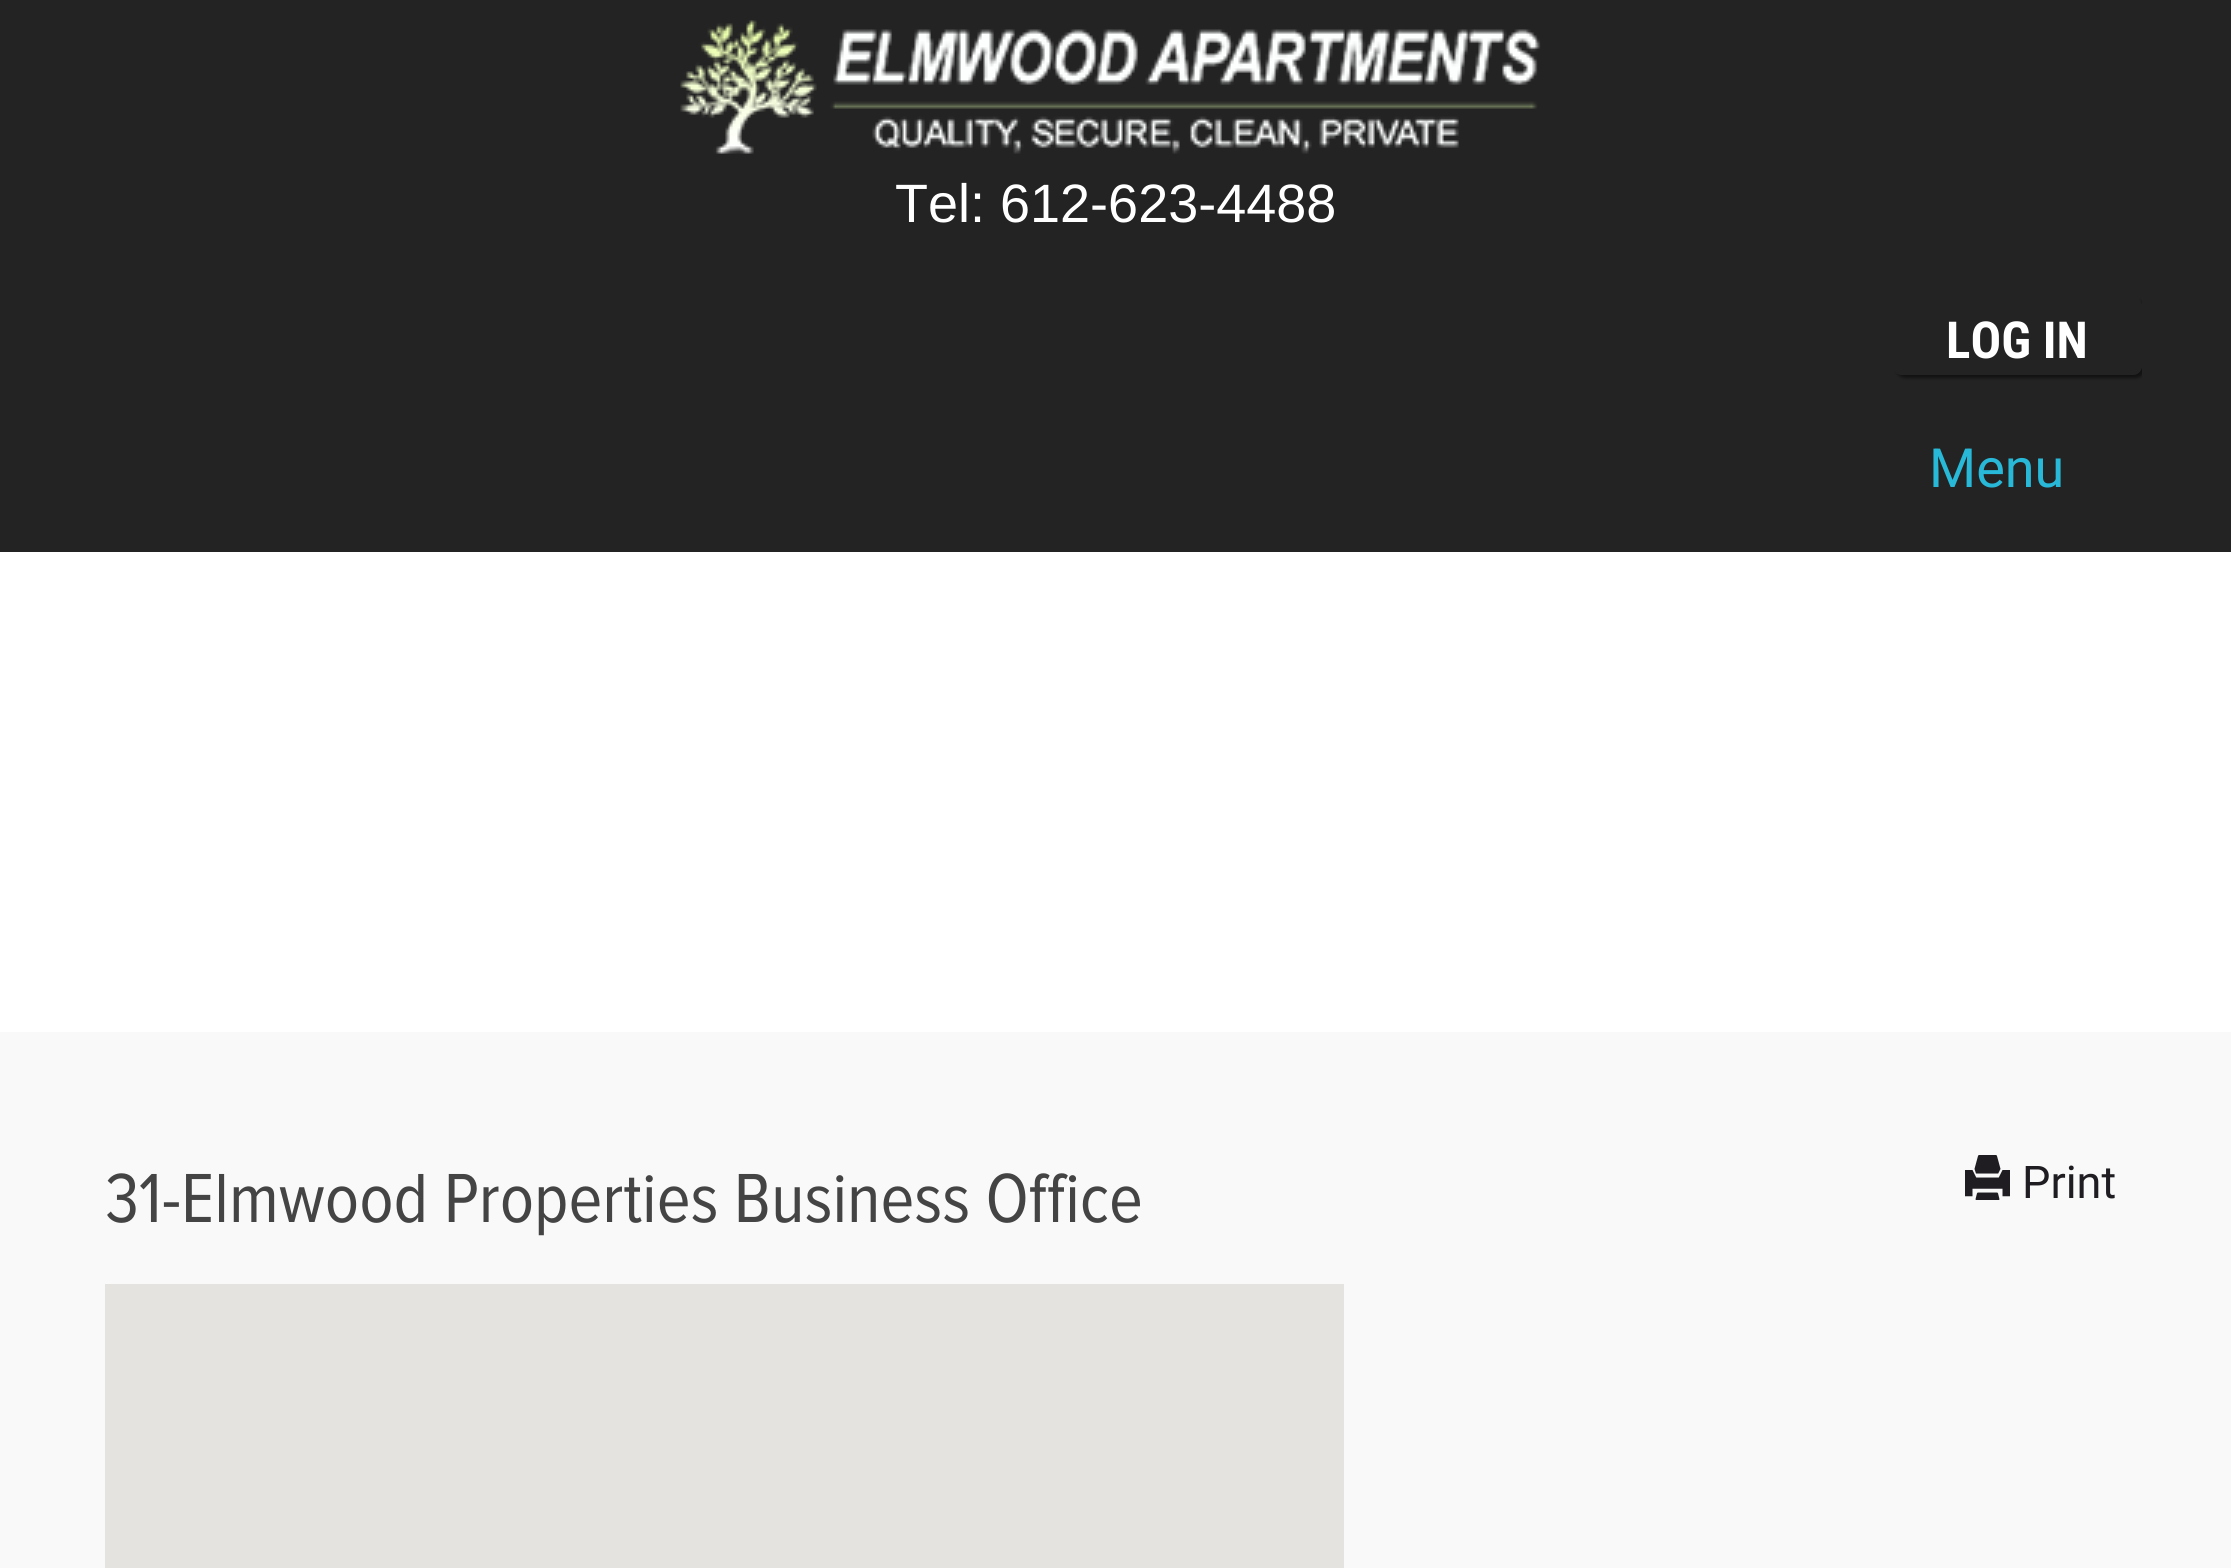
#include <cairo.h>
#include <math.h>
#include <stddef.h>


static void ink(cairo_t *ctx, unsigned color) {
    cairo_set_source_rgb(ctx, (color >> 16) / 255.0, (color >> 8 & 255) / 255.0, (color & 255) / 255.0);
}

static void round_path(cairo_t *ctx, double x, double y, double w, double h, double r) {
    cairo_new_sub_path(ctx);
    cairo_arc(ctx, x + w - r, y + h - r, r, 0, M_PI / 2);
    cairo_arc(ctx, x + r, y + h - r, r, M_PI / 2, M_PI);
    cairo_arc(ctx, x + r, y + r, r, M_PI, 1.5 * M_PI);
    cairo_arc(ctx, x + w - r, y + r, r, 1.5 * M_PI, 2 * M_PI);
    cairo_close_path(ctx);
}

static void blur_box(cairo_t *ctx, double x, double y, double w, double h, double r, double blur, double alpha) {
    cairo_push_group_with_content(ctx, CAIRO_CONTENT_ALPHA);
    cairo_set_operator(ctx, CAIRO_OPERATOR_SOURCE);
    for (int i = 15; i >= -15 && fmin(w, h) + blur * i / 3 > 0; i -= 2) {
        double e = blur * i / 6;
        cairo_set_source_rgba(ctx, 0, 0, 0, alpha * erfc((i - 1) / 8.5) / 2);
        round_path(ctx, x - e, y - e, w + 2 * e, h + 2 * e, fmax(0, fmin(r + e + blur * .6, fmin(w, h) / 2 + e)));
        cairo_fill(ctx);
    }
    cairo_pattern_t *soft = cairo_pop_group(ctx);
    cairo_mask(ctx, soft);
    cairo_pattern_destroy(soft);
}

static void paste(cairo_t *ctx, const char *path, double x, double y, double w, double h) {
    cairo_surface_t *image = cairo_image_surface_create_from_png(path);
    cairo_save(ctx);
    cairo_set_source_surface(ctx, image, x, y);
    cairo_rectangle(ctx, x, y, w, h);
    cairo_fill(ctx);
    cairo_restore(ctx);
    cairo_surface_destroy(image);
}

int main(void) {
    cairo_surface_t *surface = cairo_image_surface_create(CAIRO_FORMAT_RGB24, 2231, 1568);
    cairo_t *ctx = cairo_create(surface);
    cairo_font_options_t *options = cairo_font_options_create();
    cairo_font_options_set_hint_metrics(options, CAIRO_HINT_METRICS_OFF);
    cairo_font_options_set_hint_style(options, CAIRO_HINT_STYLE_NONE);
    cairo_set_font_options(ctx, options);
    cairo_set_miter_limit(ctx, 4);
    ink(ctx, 0xF9F9F9);
    cairo_paint(ctx);
    ink(ctx, 0x232323);
    cairo_rectangle(ctx, 0, 0, 2231, 552);
    cairo_fill(ctx);
    paste(ctx, "media/1.png", 680, 20, 861, 134);
    cairo_select_font_face(ctx, "Liberation Sans", CAIRO_FONT_SLANT_NORMAL, CAIRO_FONT_WEIGHT_NORMAL);
    cairo_set_font_size(ctx, 54);
    ink(ctx, 0xFFFFFF);
    cairo_move_to(ctx, 895, 222);
    cairo_show_text(ctx, "Tel: 612-623-4488");
    cairo_save(ctx);
    cairo_rectangle(ctx, 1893, 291, 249, 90);
    cairo_clip(ctx);
    cairo_set_fill_rule(ctx, CAIRO_FILL_RULE_EVEN_ODD);
    cairo_new_path(ctx);
    cairo_move_to(ctx, 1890, 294);
    cairo_line_to(ctx, 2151, 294);
    cairo_line_to(ctx, 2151, 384);
    cairo_line_to(ctx, 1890, 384);
    cairo_close_path(ctx);
    cairo_move_to(ctx, 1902, 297);
    cairo_line_to(ctx, 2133, 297);
    cairo_curve_to(ctx, 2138, 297, 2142, 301, 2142, 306);
    cairo_line_to(ctx, 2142, 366);
    cairo_curve_to(ctx, 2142, 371, 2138, 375, 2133, 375);
    cairo_line_to(ctx, 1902, 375);
    cairo_curve_to(ctx, 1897, 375, 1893, 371, 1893, 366);
    cairo_line_to(ctx, 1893, 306);
    cairo_curve_to(ctx, 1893, 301, 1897, 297, 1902, 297);
    cairo_close_path(ctx);
    cairo_clip(ctx);
    ink(ctx, 0x000000);
    blur_box(ctx, 1896, 300, 249, 78, 9, 1.5, 0.5);
    cairo_restore(ctx);
    cairo_select_font_face(ctx, "Roboto Condensed", CAIRO_FONT_SLANT_NORMAL, CAIRO_FONT_WEIGHT_BOLD);
    cairo_set_font_size(ctx, 51);
    cairo_move_to(ctx, 1946, 358);
    cairo_show_text(ctx, "LOG IN");
    cairo_select_font_face(ctx, "Roboto", CAIRO_FONT_SLANT_NORMAL, CAIRO_FONT_WEIGHT_NORMAL);
    cairo_set_font_size(ctx, 54);
    ink(ctx, 0x28B8D8);
    cairo_move_to(ctx, 1929, 487);
    cairo_show_text(ctx, "Menu");
    ink(ctx, 0xFFFFFF);
    cairo_rectangle(ctx, 0, 552, 2231, 480);
    cairo_fill(ctx);
    cairo_select_font_face(ctx, "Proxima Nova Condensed", CAIRO_FONT_SLANT_NORMAL, CAIRO_FONT_WEIGHT_NORMAL);
    cairo_set_font_size(ctx, 72);
    ink(ctx, 0x444444);
    cairo_move_to(ctx, 105, 1222);
    cairo_show_text(ctx, "31-Elmwood Properties Business Office");
    paste(ctx, "media/2.png", 1965, 1155, 45, 45);
    cairo_select_font_face(ctx, "Roboto", CAIRO_FONT_SLANT_NORMAL, CAIRO_FONT_WEIGHT_NORMAL);
    cairo_set_font_size(ctx, 45);
    ink(ctx, 0x1F1D22);
    cairo_move_to(ctx, 2022, 1198);
    cairo_show_text(ctx, "Print");
    ink(ctx, 0xE5E3DF);
    cairo_rectangle(ctx, 105, 1284, 1239, 284);
    cairo_fill(ctx);
    cairo_surface_write_to_png(surface, "image.png");
    cairo_font_options_destroy(options);
    cairo_destroy(ctx);
    cairo_surface_destroy(surface);
    return 0;
}
